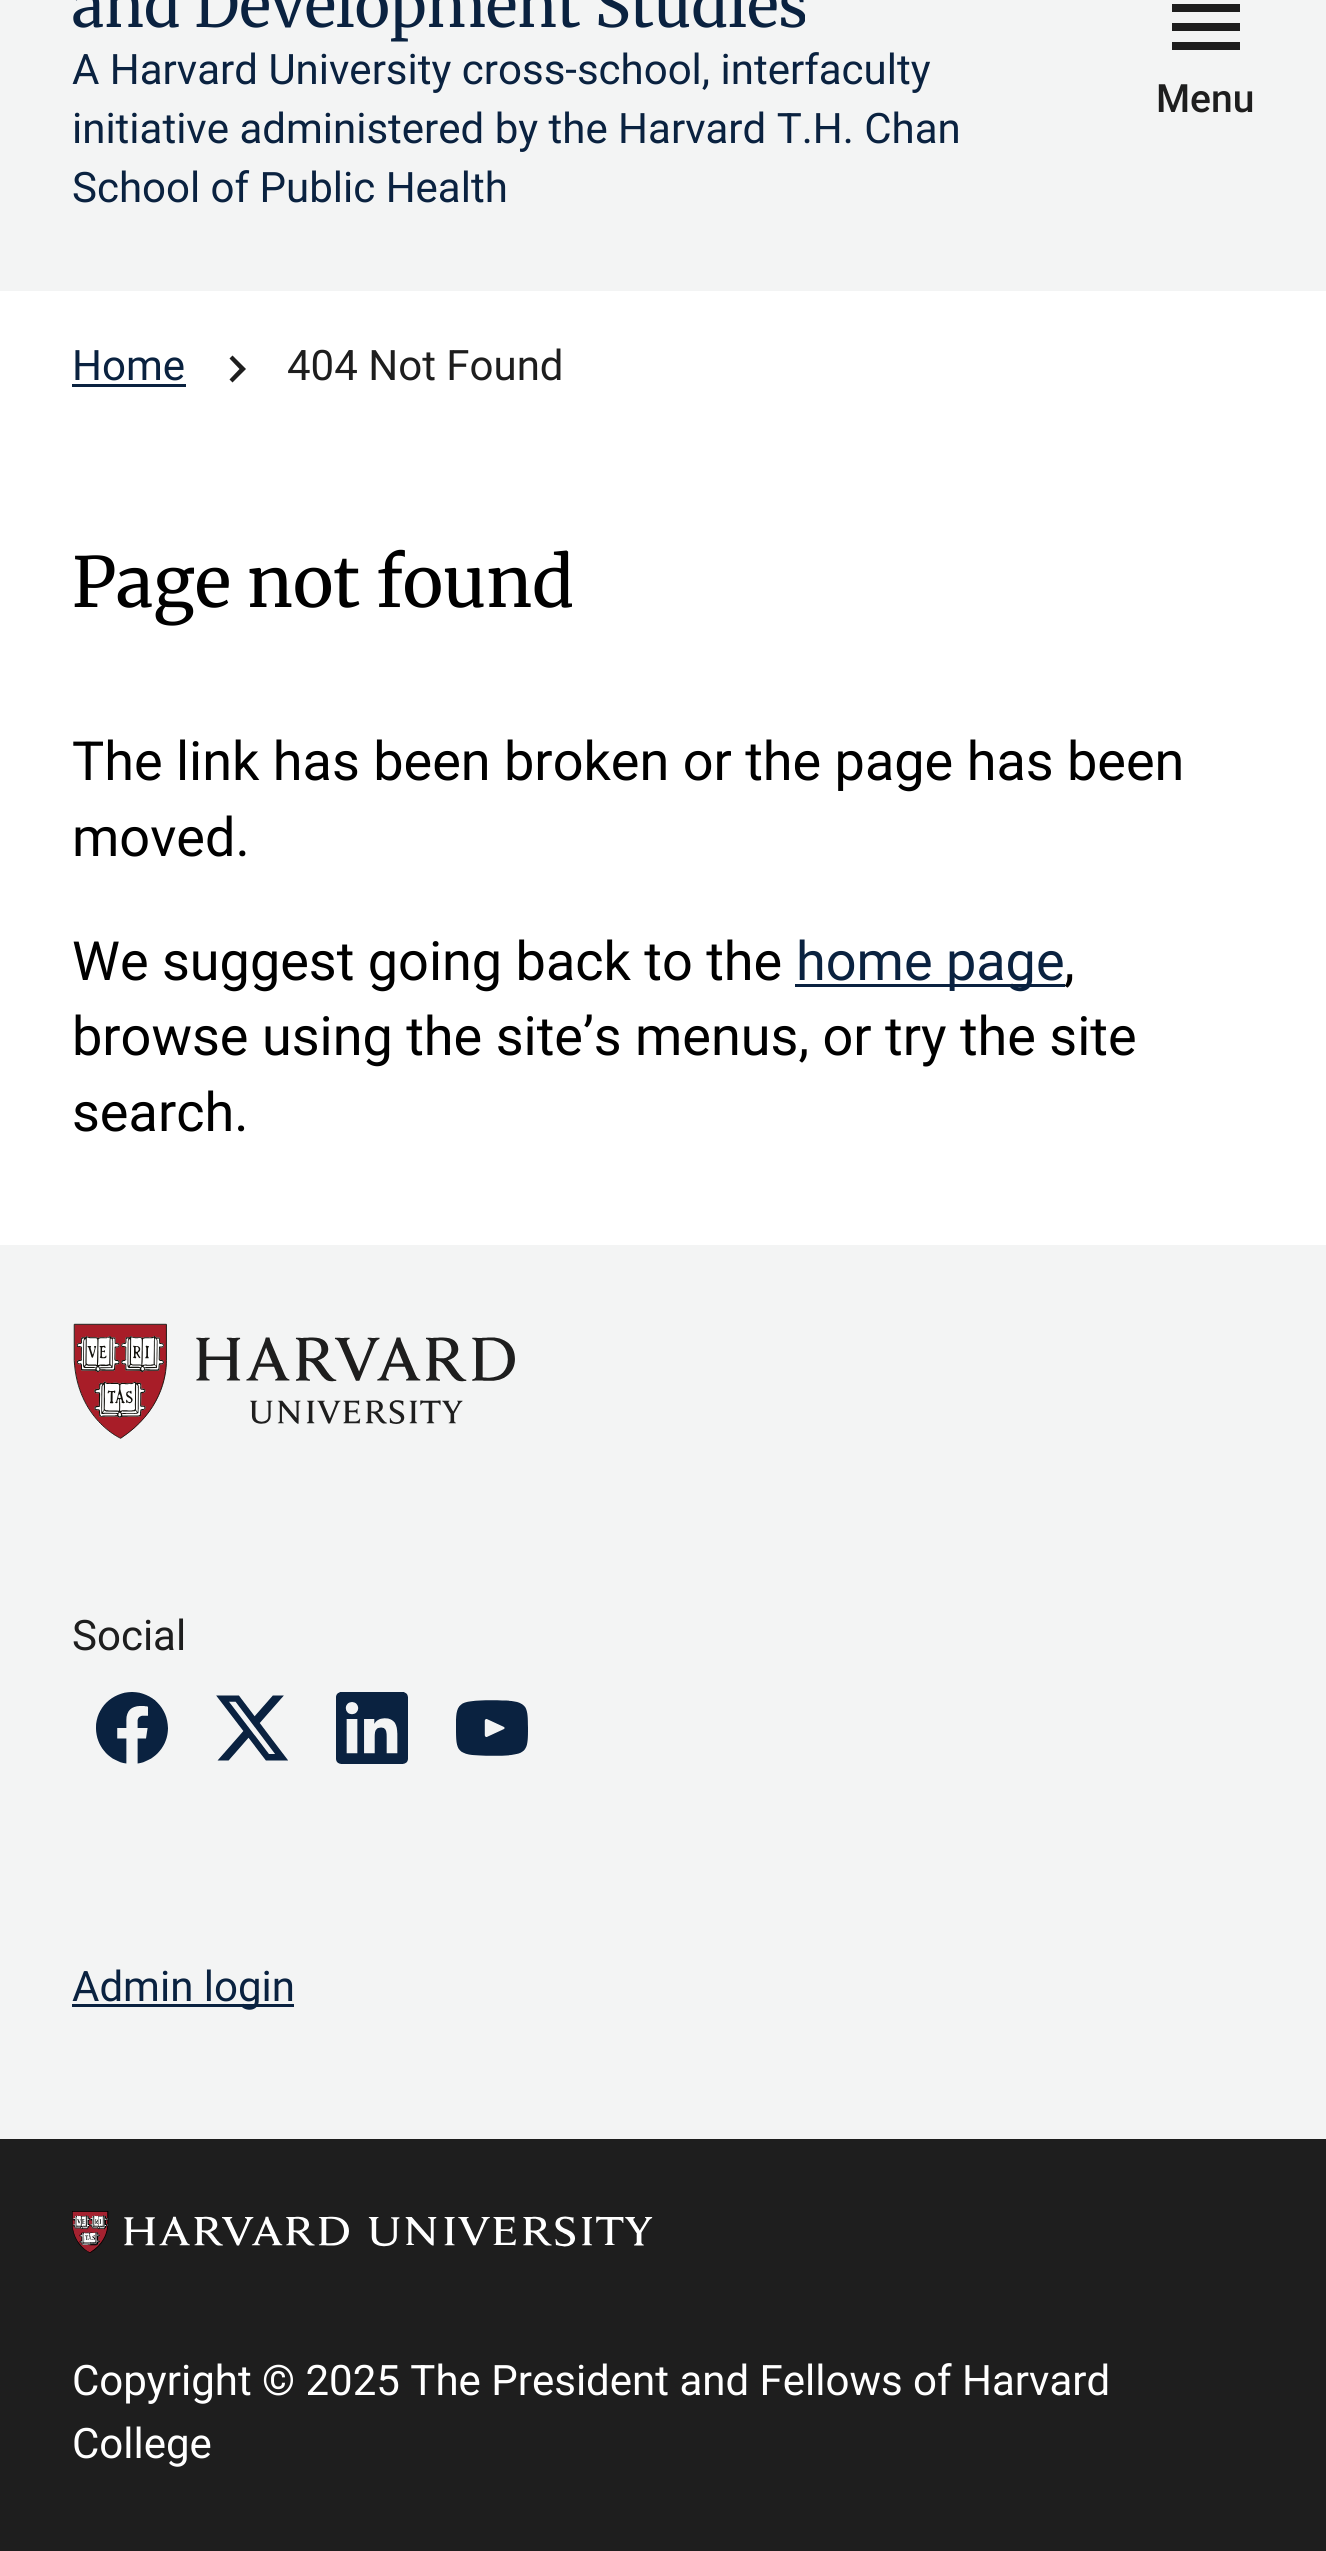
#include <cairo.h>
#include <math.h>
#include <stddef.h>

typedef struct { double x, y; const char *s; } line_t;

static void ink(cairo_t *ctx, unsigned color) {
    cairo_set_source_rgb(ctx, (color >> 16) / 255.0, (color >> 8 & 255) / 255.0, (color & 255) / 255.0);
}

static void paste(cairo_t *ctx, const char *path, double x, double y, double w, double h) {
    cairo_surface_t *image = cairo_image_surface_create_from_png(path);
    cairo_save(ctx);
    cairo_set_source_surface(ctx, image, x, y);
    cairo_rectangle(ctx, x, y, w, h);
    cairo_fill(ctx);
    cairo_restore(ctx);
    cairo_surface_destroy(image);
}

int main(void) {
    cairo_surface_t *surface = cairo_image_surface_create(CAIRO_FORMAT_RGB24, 1326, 2551);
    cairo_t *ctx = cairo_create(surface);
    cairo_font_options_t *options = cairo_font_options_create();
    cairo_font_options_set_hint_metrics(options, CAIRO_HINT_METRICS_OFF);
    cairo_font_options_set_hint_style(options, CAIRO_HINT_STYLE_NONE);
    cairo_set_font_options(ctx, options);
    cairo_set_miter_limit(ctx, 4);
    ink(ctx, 0xFFFFFF);
    cairo_paint(ctx);
    ink(ctx, 0xF3F4F4);
    cairo_rectangle(ctx, 0, 0, 1326, 291);
    cairo_fill(ctx);
    cairo_select_font_face(ctx, "Merriweather", CAIRO_FONT_SLANT_NORMAL, CAIRO_FONT_WEIGHT_NORMAL);
    cairo_set_font_size(ctx, 60);
    ink(ctx, 0x0A2240);
    cairo_move_to(ctx, 72, 27);
    cairo_show_text(ctx, "and Development Studies");
    cairo_select_font_face(ctx, "Roboto", CAIRO_FONT_SLANT_NORMAL, CAIRO_FONT_WEIGHT_NORMAL);
    cairo_set_font_size(ctx, 42);
    {
        static const line_t items[] = {
            {72, 84, "A Harvard University cross-school, interfaculty"},
            {72, 143, "initiative administered by the Harvard T.H. Chan"},
            {72, 202, "School of Public Health"},
        };
        for (size_t i = 0; i < sizeof items / sizeof *items; i++) {
            cairo_move_to(ctx, items[i].x, items[i].y);
            cairo_show_text(ctx, items[i].s);
        }
    }
    ink(ctx, 0x1E1E1E);
    cairo_new_path(ctx);
    cairo_move_to(ctx, 1172, 4);
    cairo_line_to(ctx, 1240, 4);
    cairo_line_to(ctx, 1240, 12);
    cairo_line_to(ctx, 1172, 12);
    cairo_close_path(ctx);
    cairo_move_to(ctx, 1172, 31);
    cairo_line_to(ctx, 1172, 23);
    cairo_line_to(ctx, 1240, 23);
    cairo_line_to(ctx, 1240, 31);
    cairo_close_path(ctx);
    cairo_move_to(ctx, 1172, 50);
    cairo_line_to(ctx, 1172, 42);
    cairo_line_to(ctx, 1240, 42);
    cairo_line_to(ctx, 1240, 50);
    cairo_close_path(ctx);
    cairo_fill(ctx);
    cairo_select_font_face(ctx, "Roboto Medium", CAIRO_FONT_SLANT_NORMAL, CAIRO_FONT_WEIGHT_NORMAL);
    cairo_set_font_size(ctx, 39);
    cairo_move_to(ctx, 1156, 112);
    cairo_show_text(ctx, "Menu");
    cairo_select_font_face(ctx, "Roboto", CAIRO_FONT_SLANT_NORMAL, CAIRO_FONT_WEIGHT_NORMAL);
    cairo_set_font_size(ctx, 42);
    ink(ctx, 0x0A2240);
    cairo_move_to(ctx, 72, 380);
    cairo_show_text(ctx, "Home");
    cairo_rectangle(ctx, 72, 384, 114, 3);
    cairo_fill(ctx);
    ink(ctx, 0x1E1E1E);
    cairo_new_path(ctx);
    cairo_move_to(ctx, 232.5, 355.5);
    cairo_line_to(ctx, 246, 369);
    cairo_line_to(ctx, 232.5, 382.5);
    cairo_line_to(ctx, 229.5, 379.5);
    cairo_line_to(ctx, 239.5, 369);
    cairo_line_to(ctx, 229.5, 358.5);
    cairo_close_path(ctx);
    cairo_fill(ctx);
    cairo_move_to(ctx, 287, 380);
    cairo_show_text(ctx, "404 Not Found");
    cairo_select_font_face(ctx, "Merriweather", CAIRO_FONT_SLANT_NORMAL, CAIRO_FONT_WEIGHT_NORMAL);
    cairo_set_font_size(ctx, 69);
    ink(ctx, 0x000000);
    cairo_move_to(ctx, 72, 607);
    cairo_show_text(ctx, "Page not found");
    cairo_select_font_face(ctx, "Roboto", CAIRO_FONT_SLANT_NORMAL, CAIRO_FONT_WEIGHT_NORMAL);
    cairo_set_font_size(ctx, 54);
    {
        static const line_t items[] = {
            {72, 780, "The link has been broken or the page has been"},
            {72, 856, "moved."},
            {72, 980, "We suggest going back to the"},
        };
        for (size_t i = 0; i < sizeof items / sizeof *items; i++) {
            cairo_move_to(ctx, items[i].x, items[i].y);
            cairo_show_text(ctx, items[i].s);
        }
    }
    ink(ctx, 0x0A2240);
    cairo_rectangle(ctx, 795, 984, 270, 3);
    cairo_fill(ctx);
    cairo_move_to(ctx, 796, 980);
    cairo_show_text(ctx, "home page");
    ink(ctx, 0x000000);
    {
        static const line_t items[] = {
            {1064, 980, ","},
            {72, 1055, "browse using the site’s menus, or try the site"},
            {72, 1131, "search."},
        };
        for (size_t i = 0; i < sizeof items / sizeof *items; i++) {
            cairo_move_to(ctx, items[i].x, items[i].y);
            cairo_show_text(ctx, items[i].s);
        }
    }
    ink(ctx, 0xF3F4F4);
    cairo_rectangle(ctx, 0, 1245, 1326, 894);
    cairo_fill(ctx);
    paste(ctx, "media/1.png", 73, 1323, 442, 116);
    cairo_set_font_size(ctx, 42);
    ink(ctx, 0x1E1E1E);
    cairo_move_to(ctx, 72, 1650);
    cairo_show_text(ctx, "Social");
    paste(ctx, "media/2.png", 96, 1692, 72, 72);
    paste(ctx, "media/3.png", 216, 1695, 72, 66);
    paste(ctx, "media/4.png", 336, 1692, 72, 72);
    paste(ctx, "media/5.png", 456, 1700, 72, 56);
    ink(ctx, 0x0A2240);
    cairo_rectangle(ctx, 72, 2004, 222, 3);
    cairo_fill(ctx);
    cairo_move_to(ctx, 72, 2001);
    cairo_show_text(ctx, "Admin login");
    ink(ctx, 0x1E1E1E);
    cairo_rectangle(ctx, 0, 2139, 1326, 412);
    cairo_fill(ctx);
    paste(ctx, "media/6.png", 72, 2211, 581, 42);
    ink(ctx, 0xFFFFFF);
    cairo_move_to(ctx, 72, 2395);
    cairo_show_text(ctx, "Copyright © 2025 The President and Fellows of Harvard");
    cairo_move_to(ctx, 72, 2458);
    cairo_show_text(ctx, "College");
    cairo_surface_write_to_png(surface, "image.png");
    cairo_font_options_destroy(options);
    cairo_destroy(ctx);
    cairo_surface_destroy(surface);
    return 0;
}
